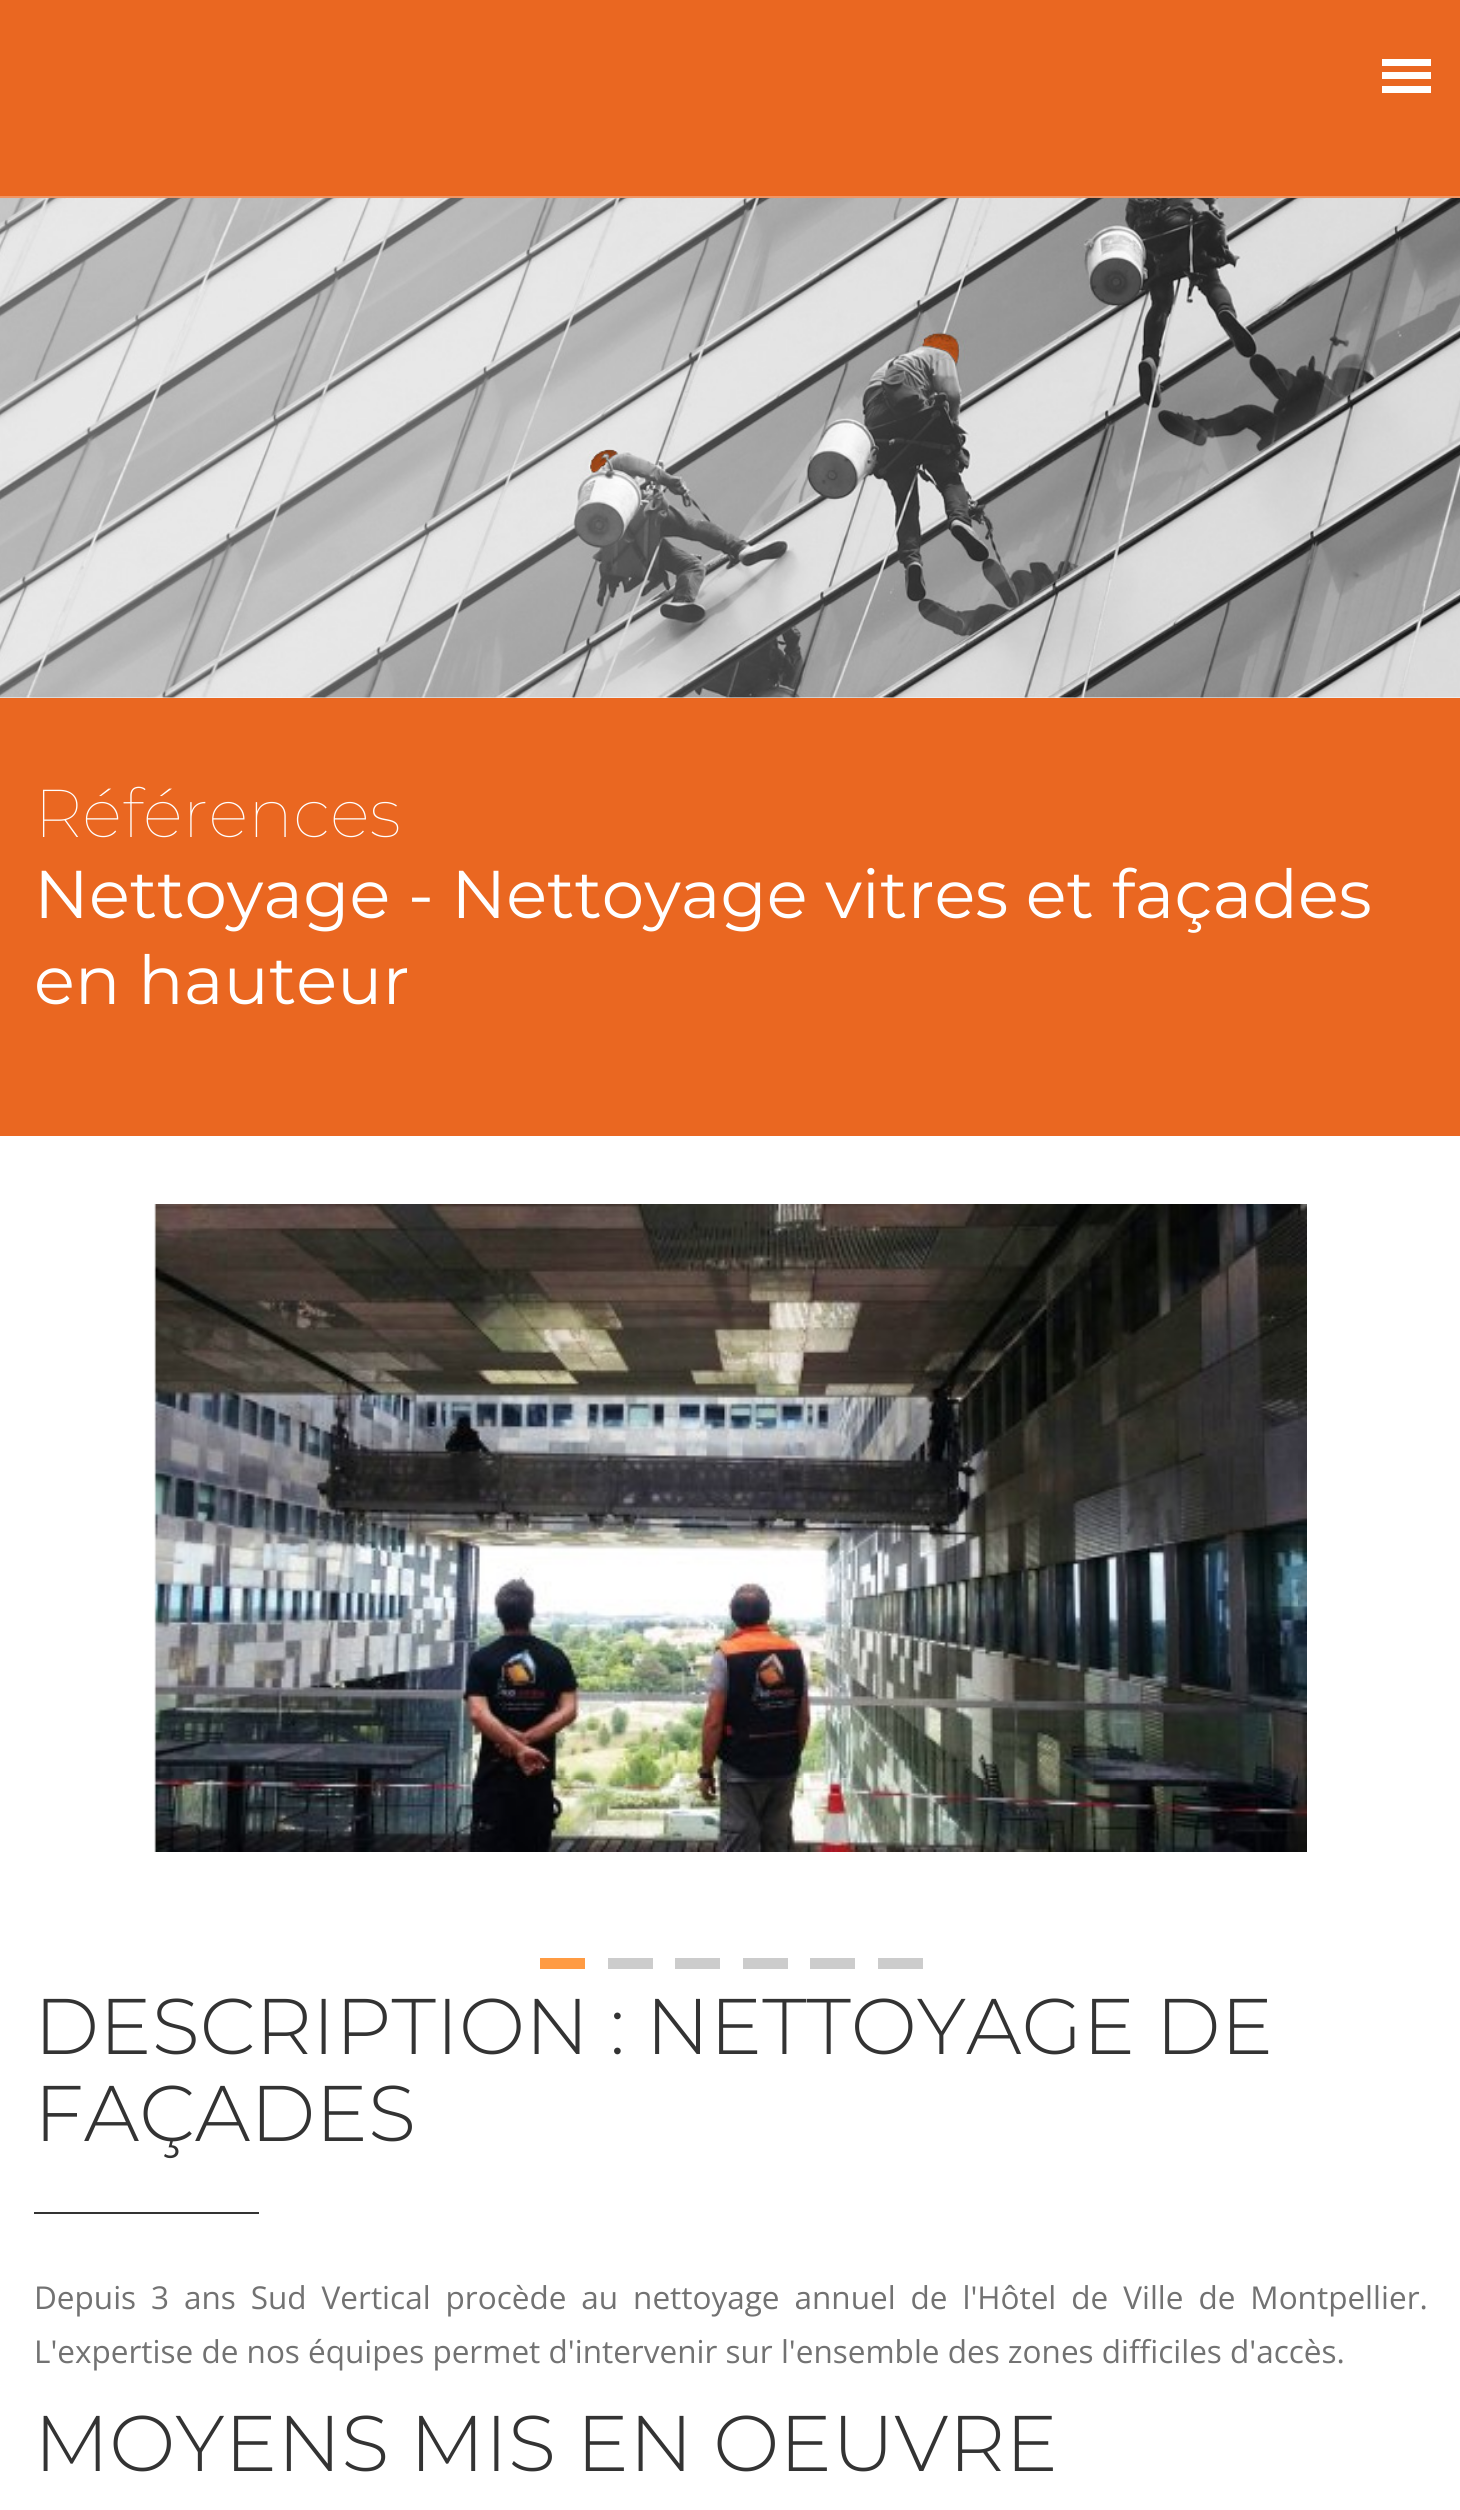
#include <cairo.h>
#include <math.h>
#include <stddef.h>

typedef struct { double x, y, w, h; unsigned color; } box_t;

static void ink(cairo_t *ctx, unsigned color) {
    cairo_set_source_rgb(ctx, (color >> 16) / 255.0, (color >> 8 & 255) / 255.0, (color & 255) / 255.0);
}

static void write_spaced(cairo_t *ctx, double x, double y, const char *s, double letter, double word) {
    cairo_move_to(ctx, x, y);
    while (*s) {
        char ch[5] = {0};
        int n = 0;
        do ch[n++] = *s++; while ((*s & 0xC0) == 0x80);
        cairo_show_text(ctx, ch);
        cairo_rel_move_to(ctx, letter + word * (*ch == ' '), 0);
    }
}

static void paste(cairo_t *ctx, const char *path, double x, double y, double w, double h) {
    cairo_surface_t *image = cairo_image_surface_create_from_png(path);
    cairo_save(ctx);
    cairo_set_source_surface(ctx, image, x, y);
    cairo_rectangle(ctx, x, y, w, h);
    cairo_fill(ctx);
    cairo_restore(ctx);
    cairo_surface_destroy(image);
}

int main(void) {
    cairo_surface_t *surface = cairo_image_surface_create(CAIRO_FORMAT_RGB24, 1460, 2510);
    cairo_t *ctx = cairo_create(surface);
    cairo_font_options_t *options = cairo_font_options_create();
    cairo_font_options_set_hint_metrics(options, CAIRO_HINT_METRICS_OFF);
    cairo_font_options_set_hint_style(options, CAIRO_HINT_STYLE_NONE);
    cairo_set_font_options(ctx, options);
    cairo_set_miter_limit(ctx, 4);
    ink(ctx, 0xFFFFFF);
    cairo_paint(ctx);
    {
        static const box_t items[] = {
            {0, 0, 1460, 196, 0xEA6721},
            {0, 196, 1460, 2, 0xF09564},
            {1382, 59, 49, 7, 0xFFFFFF},
            {1382, 72, 49, 7, 0xFFFFFF},
            {1382, 86, 49, 7, 0xFFFFFF},
        };
        for (size_t i = 0; i < sizeof items / sizeof *items; i++) {
            ink(ctx, items[i].color);
            cairo_rectangle(ctx, items[i].x, items[i].y, items[i].w, items[i].h);
            cairo_fill(ctx);
        }
    }
    paste(ctx, "media/1.png", 0, 198, 1460, 500);
    ink(ctx, 0xEA6721);
    cairo_rectangle(ctx, 0, 698, 1460, 438);
    cairo_fill(ctx);
    cairo_select_font_face(ctx, "Montserrat Thin", CAIRO_FONT_SLANT_NORMAL, CAIRO_FONT_WEIGHT_NORMAL);
    cairo_set_font_size(ctx, 67.5);
    ink(ctx, 0xFFFFFF);
    cairo_move_to(ctx, 34, 837);
    cairo_show_text(ctx, "Références");
    cairo_select_font_face(ctx, "Montserrat", CAIRO_FONT_SLANT_NORMAL, CAIRO_FONT_WEIGHT_NORMAL);
    cairo_move_to(ctx, 34, 918);
    cairo_show_text(ctx, "Nettoyage - Nettoyage vitres et façades");
    cairo_move_to(ctx, 34, 1004);
    cairo_show_text(ctx, "en hauteur");
    paste(ctx, "media/2.png", 154, 1204, 1153, 648);
    {
        static const box_t items[] = {
            {540, 1958, 45, 11, 0xFF9B43},
            {608, 1958, 45, 11, 0xCCCCCC},
            {675, 1958, 45, 11, 0xCCCCCC},
            {743, 1958, 45, 11, 0xCCCCCC},
            {810, 1958, 45, 11, 0xCCCCCC},
            {878, 1958, 45, 11, 0xCCCCCC},
        };
        for (size_t i = 0; i < sizeof items / sizeof *items; i++) {
            ink(ctx, items[i].color);
            cairo_rectangle(ctx, items[i].x, items[i].y, items[i].w, items[i].h);
            cairo_fill(ctx);
        }
    }
    cairo_select_font_face(ctx, "Montserrat Light", CAIRO_FONT_SLANT_NORMAL, CAIRO_FONT_WEIGHT_NORMAL);
    cairo_set_font_size(ctx, 78.75);
    ink(ctx, 0x333333);
    cairo_move_to(ctx, 34, 2054);
    cairo_show_text(ctx, "DESCRIPTION : NETTOYAGE DE");
    cairo_move_to(ctx, 34, 2141);
    cairo_show_text(ctx, "FAÇADES");
    cairo_rectangle(ctx, 34, 2212, 225, 2);
    cairo_fill(ctx);
    cairo_select_font_face(ctx, "Open Sans", CAIRO_FONT_SLANT_NORMAL, CAIRO_FONT_WEIGHT_NORMAL);
    cairo_set_font_size(ctx, 31.5);
    ink(ctx, 0x727272);
    write_spaced(ctx, 34, 2309, "Depuis 3 ans Sud Vertical procède au nettoyage annuel de l'Hôtel de Ville de Montpellier.", 0, 6.75);
    cairo_move_to(ctx, 34, 2363);
    cairo_show_text(ctx, "L'expertise de nos équipes permet d'intervenir sur l'ensemble des zones difficiles d'accès.");
    cairo_select_font_face(ctx, "Montserrat Light", CAIRO_FONT_SLANT_NORMAL, CAIRO_FONT_WEIGHT_NORMAL);
    cairo_set_font_size(ctx, 78.75);
    ink(ctx, 0x333333);
    cairo_move_to(ctx, 34, 2471);
    cairo_show_text(ctx, "MOYENS MIS EN OEUVRE");
    cairo_surface_write_to_png(surface, "image.png");
    cairo_font_options_destroy(options);
    cairo_destroy(ctx);
    cairo_surface_destroy(surface);
    return 0;
}
